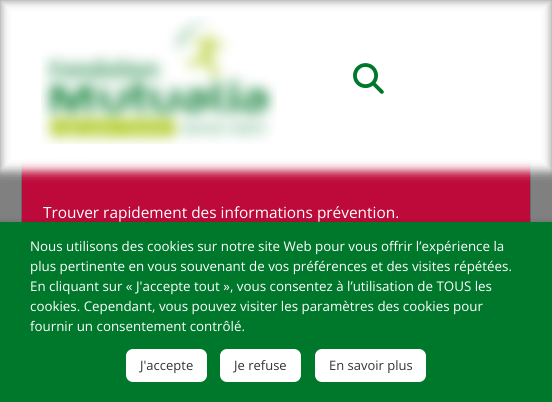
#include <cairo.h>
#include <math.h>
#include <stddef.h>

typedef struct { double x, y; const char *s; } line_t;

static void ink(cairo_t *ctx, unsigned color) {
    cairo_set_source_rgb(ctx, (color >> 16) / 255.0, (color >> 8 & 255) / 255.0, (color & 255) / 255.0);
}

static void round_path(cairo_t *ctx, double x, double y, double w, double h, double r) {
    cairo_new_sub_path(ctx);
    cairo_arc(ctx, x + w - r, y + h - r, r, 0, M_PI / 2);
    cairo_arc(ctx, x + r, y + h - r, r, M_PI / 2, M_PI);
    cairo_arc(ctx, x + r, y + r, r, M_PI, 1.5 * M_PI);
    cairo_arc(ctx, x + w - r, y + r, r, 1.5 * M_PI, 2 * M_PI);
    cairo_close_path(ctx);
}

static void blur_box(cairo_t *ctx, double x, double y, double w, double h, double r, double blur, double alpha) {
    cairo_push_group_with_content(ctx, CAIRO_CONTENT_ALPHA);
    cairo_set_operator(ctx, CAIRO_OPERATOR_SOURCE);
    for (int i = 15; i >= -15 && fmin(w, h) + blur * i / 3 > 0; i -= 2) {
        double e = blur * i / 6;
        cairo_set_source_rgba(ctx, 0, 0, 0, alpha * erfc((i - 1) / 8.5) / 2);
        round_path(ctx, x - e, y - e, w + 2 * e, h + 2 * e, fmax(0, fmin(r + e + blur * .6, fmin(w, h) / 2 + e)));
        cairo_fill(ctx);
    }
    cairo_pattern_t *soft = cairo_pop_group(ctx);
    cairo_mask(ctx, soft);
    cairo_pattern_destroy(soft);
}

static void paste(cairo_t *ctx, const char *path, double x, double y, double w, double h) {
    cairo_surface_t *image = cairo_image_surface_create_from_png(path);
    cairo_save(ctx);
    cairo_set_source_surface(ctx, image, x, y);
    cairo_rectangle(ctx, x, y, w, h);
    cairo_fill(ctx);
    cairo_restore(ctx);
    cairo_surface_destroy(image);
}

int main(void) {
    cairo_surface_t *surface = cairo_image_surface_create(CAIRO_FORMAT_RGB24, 552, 402);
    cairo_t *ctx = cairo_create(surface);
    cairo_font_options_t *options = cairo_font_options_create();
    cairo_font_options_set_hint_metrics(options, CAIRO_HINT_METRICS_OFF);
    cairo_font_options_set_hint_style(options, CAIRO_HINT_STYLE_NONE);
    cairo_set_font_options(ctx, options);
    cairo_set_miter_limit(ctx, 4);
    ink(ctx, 0x808080);
    cairo_paint(ctx);
    ink(ctx, 0xBE0A3A);
    cairo_rectangle(ctx, 22, 158, 508, 64);
    cairo_fill(ctx);
    cairo_rectangle(ctx, 21.5, 45.5, 509, 311);
    cairo_set_source_rgba(ctx, 0, 0, 0, 0.18);
    cairo_set_line_width(ctx, 1);
    cairo_stroke(ctx);
    paste(ctx, "media/3.png", 50, 158, 39, 1);
    ink(ctx, 0xFFFFFF);
    blur_box(ctx, 0, 0, 552, 171, 0, 5, 1);
    paste(ctx, "media/1.png", 41, 16, 236, 128);
    paste(ctx, "media/2.png", 353, 63, 31, 31);
    cairo_select_font_face(ctx, "Open Sans", CAIRO_FONT_SLANT_NORMAL, CAIRO_FONT_WEIGHT_NORMAL);
    cairo_set_font_size(ctx, 15.4);
    ink(ctx, 0xFFFFFF);
    cairo_move_to(ctx, 43, 218);
    cairo_show_text(ctx, "Trouver rapidement des informations prévention.");
    ink(ctx, 0x000000);
    blur_box(ctx, 0, 227, 552, 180, 0, 5, 0.5);
    ink(ctx, 0x00782C);
    cairo_rectangle(ctx, 0, 222, 552, 180);
    cairo_fill(ctx);
    cairo_set_font_size(ctx, 13.35);
    ink(ctx, 0xFFFFFF);
    {
        static const line_t items[] = {
            {30, 251, "Nous utilisons des cookies sur notre site Web pour vous offrir l’expérience la"},
            {30, 271, "plus pertinente en vous souvenant de vos préférences et des visites répétées."},
            {30, 291, "En cliquant sur « J'accepte tout », vous consentez à l’utilisation de TOUS les"},
            {30, 311, "cookies. Cependant, vous pouvez visiter les paramètres des cookies pour"},
            {30, 331, "fournir un consentement contrôlé."},
        };
        for (size_t i = 0; i < sizeof items / sizeof *items; i++) {
            cairo_move_to(ctx, items[i].x, items[i].y);
            cairo_show_text(ctx, items[i].s);
        }
    }
    round_path(ctx, 126, 349, 81, 33, 7);
    cairo_fill(ctx);
    cairo_set_font_size(ctx, 13);
    ink(ctx, 0x333333);
    cairo_move_to(ctx, 140, 370);
    cairo_show_text(ctx, "J'accepte");
    ink(ctx, 0xFFFFFF);
    round_path(ctx, 220, 349, 81, 33, 7);
    cairo_fill(ctx);
    ink(ctx, 0x333333);
    cairo_move_to(ctx, 234, 370);
    cairo_show_text(ctx, "Je refuse");
    ink(ctx, 0xFFFFFF);
    round_path(ctx, 315, 349, 111, 33, 7);
    cairo_fill(ctx);
    ink(ctx, 0x333333);
    cairo_move_to(ctx, 329, 370);
    cairo_show_text(ctx, "En savoir plus");
    cairo_surface_write_to_png(surface, "image.png");
    cairo_font_options_destroy(options);
    cairo_destroy(ctx);
    cairo_surface_destroy(surface);
    return 0;
}
